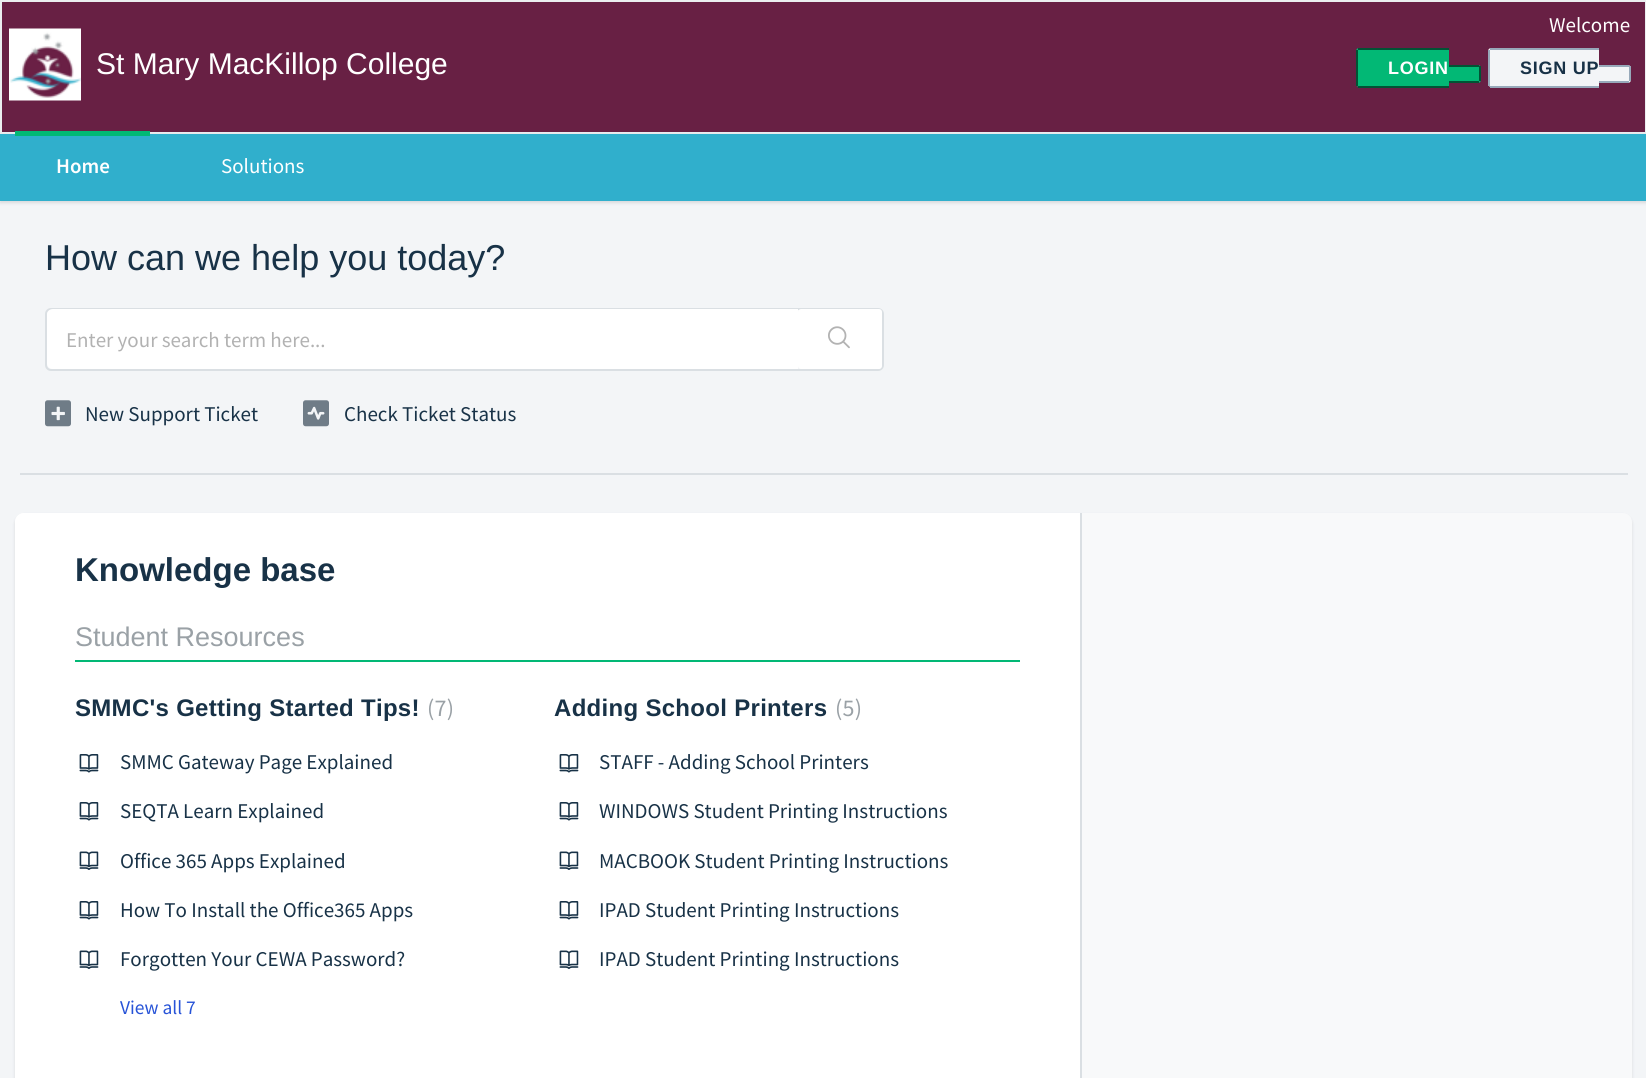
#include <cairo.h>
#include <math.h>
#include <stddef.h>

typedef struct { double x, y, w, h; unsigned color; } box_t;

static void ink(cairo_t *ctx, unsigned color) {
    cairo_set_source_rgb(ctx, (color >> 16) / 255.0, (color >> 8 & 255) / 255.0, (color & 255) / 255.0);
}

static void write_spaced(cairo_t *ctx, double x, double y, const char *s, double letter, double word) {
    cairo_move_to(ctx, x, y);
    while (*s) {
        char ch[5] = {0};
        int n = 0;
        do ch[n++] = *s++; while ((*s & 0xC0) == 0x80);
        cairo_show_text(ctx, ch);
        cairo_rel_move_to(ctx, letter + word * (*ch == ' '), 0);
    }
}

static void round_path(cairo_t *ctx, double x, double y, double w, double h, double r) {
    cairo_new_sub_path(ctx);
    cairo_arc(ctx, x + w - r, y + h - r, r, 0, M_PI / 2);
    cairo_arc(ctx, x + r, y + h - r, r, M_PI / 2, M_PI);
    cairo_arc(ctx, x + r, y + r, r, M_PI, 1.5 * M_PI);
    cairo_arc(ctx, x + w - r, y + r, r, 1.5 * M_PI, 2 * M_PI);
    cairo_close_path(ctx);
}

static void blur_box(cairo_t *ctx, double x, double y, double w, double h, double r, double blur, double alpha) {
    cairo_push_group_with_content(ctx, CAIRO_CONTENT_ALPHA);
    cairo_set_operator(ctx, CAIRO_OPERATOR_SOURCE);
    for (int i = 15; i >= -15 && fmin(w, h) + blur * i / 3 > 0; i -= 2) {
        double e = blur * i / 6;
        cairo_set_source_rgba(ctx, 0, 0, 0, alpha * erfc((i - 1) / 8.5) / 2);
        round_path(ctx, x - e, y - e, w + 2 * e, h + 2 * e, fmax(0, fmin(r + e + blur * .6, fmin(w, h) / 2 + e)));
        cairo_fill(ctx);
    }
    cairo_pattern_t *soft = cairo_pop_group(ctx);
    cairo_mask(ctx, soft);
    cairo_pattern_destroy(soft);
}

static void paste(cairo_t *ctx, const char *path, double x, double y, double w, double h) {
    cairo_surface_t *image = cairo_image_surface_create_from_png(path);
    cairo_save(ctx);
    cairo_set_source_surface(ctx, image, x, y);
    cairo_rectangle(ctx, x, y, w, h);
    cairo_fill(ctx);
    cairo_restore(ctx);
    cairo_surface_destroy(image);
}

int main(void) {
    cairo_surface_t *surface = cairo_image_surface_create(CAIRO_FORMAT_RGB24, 1646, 1078);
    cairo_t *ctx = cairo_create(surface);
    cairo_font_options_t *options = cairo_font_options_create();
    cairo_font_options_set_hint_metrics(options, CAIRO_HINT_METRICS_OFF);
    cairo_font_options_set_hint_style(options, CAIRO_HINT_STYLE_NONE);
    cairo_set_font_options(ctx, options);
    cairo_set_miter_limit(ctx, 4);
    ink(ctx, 0xF3F5F7);
    cairo_paint(ctx);
    ink(ctx, 0x682044);
    cairo_rectangle(ctx, 1, 1, 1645, 132);
    cairo_fill_preserve(ctx);
    ink(ctx, 0xEBEEF0);
    cairo_stroke(ctx);
    paste(ctx, "media/1.png", 9, 28, 72, 73);
    cairo_select_font_face(ctx, "Liberation Sans", CAIRO_FONT_SLANT_NORMAL, CAIRO_FONT_WEIGHT_NORMAL);
    cairo_set_font_size(ctx, 30);
    ink(ctx, 0xFFFFFF);
    cairo_move_to(ctx, 96, 74);
    cairo_show_text(ctx, "St Mary MacKillop College");
    cairo_select_font_face(ctx, "Source Sans Pro", CAIRO_FONT_SLANT_NORMAL, CAIRO_FONT_WEIGHT_NORMAL);
    cairo_set_font_size(ctx, 21);
    cairo_move_to(ctx, 1549, 32);
    cairo_show_text(ctx, "Welcome");
    ink(ctx, 0x02B875);
    cairo_new_path(ctx);
    cairo_move_to(ctx, 1359, 48);
    cairo_line_to(ctx, 1449, 48);
    cairo_line_to(ctx, 1449, 87);
    cairo_line_to(ctx, 1359, 87);
    cairo_curve_to(ctx, 1357.5, 87, 1356, 85.5, 1356, 84);
    cairo_line_to(ctx, 1356, 51);
    cairo_curve_to(ctx, 1356, 49.5, 1357.5, 48, 1359, 48);
    cairo_close_path(ctx);
    cairo_fill(ctx);
    cairo_select_font_face(ctx, "Liberation Sans", CAIRO_FONT_SLANT_NORMAL, CAIRO_FONT_WEIGHT_BOLD);
    cairo_set_font_size(ctx, 18);
    ink(ctx, 0xFFFFFF);
    write_spaced(ctx, 1388, 74, "LOGIN", 0.75, 0);
    {
        static const box_t items[] = {
            {1358, 48, 91, 2, 0x015335},
            {1358, 86, 91, 2, 0x015335},
            {1356, 50, 2, 36, 0x015335},
        };
        for (size_t i = 0; i < sizeof items / sizeof *items; i++) {
            ink(ctx, items[i].color);
            cairo_rectangle(ctx, items[i].x, items[i].y, items[i].w, items[i].h);
            cairo_fill(ctx);
        }
    }
    ink(ctx, 0x02B875);
    cairo_new_path(ctx);
    cairo_move_to(ctx, 1449, 65);
    cairo_line_to(ctx, 1478, 65);
    cairo_curve_to(ctx, 1479.5, 65, 1481, 66.5, 1481, 68);
    cairo_line_to(ctx, 1481, 80);
    cairo_curve_to(ctx, 1481, 81.5, 1479.5, 83, 1478, 83);
    cairo_line_to(ctx, 1449, 83);
    cairo_close_path(ctx);
    cairo_fill(ctx);
    {
        static const box_t items[] = {
            {1449, 65, 30, 2, 0x015335},
            {1479, 66, 2, 15, 0x015335},
            {1449, 81, 30, 2, 0x015335},
        };
        for (size_t i = 0; i < sizeof items / sizeof *items; i++) {
            ink(ctx, items[i].color);
            cairo_rectangle(ctx, items[i].x, items[i].y, items[i].w, items[i].h);
            cairo_fill(ctx);
        }
    }
    ink(ctx, 0xF3F5F7);
    cairo_new_path(ctx);
    cairo_move_to(ctx, 1491, 48);
    cairo_line_to(ctx, 1599, 48);
    cairo_line_to(ctx, 1599, 87);
    cairo_line_to(ctx, 1491, 87);
    cairo_curve_to(ctx, 1489.5, 87, 1488, 85.5, 1488, 84);
    cairo_line_to(ctx, 1488, 51);
    cairo_curve_to(ctx, 1488, 49.5, 1489.5, 48, 1491, 48);
    cairo_close_path(ctx);
    cairo_fill(ctx);
    ink(ctx, 0x183247);
    write_spaced(ctx, 1520, 74, "SIGN UP", 0.75, 0);
    {
        static const box_t items[] = {
            {1490, 48, 109, 2, 0x97A9BA},
            {1490, 86, 109, 2, 0x97A9BA},
            {1488, 50, 2, 36, 0x97A9BA},
        };
        for (size_t i = 0; i < sizeof items / sizeof *items; i++) {
            ink(ctx, items[i].color);
            cairo_rectangle(ctx, items[i].x, items[i].y, items[i].w, items[i].h);
            cairo_fill(ctx);
        }
    }
    ink(ctx, 0xF3F5F7);
    cairo_new_path(ctx);
    cairo_move_to(ctx, 1599, 65);
    cairo_line_to(ctx, 1628, 65);
    cairo_curve_to(ctx, 1629.5, 65, 1631, 66.5, 1631, 68);
    cairo_line_to(ctx, 1631, 80);
    cairo_curve_to(ctx, 1631, 81.5, 1629.5, 83, 1628, 83);
    cairo_line_to(ctx, 1599, 83);
    cairo_close_path(ctx);
    cairo_fill(ctx);
    {
        static const box_t items[] = {
            {1599, 65, 30, 2, 0x97A9BA},
            {1629, 66, 2, 15, 0x97A9BA},
            {1599, 81, 30, 2, 0x97A9BA},
        };
        for (size_t i = 0; i < sizeof items / sizeof *items; i++) {
            ink(ctx, items[i].color);
            cairo_rectangle(ctx, items[i].x, items[i].y, items[i].w, items[i].h);
            cairo_fill(ctx);
        }
    }
    ink(ctx, 0x3F3F44);
    blur_box(ctx, 0, 135, 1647, 68, 0, 1.5, 0.15);
    ink(ctx, 0x30AFCC);
    cairo_rectangle(ctx, 0, 134, 1646, 67);
    cairo_fill(ctx);
    ink(ctx, 0x02B875);
    cairo_rectangle(ctx, 15, 131, 135, 5);
    cairo_fill(ctx);
    cairo_select_font_face(ctx, "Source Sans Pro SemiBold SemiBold", CAIRO_FONT_SLANT_NORMAL, CAIRO_FONT_WEIGHT_NORMAL);
    cairo_set_font_size(ctx, 21);
    ink(ctx, 0xFFFFFF);
    cairo_move_to(ctx, 56, 173);
    cairo_show_text(ctx, "Home");
    cairo_select_font_face(ctx, "Source Sans Pro", CAIRO_FONT_SLANT_NORMAL, CAIRO_FONT_WEIGHT_NORMAL);
    cairo_move_to(ctx, 221, 173);
    cairo_show_text(ctx, "Solutions");
    ink(ctx, 0xDADFE3);
    cairo_rectangle(ctx, 20, 473, 1608, 2);
    cairo_fill(ctx);
    cairo_select_font_face(ctx, "Liberation Sans", CAIRO_FONT_SLANT_NORMAL, CAIRO_FONT_WEIGHT_NORMAL);
    cairo_set_font_size(ctx, 36);
    ink(ctx, 0x183247);
    cairo_move_to(ctx, 45, 270);
    cairo_show_text(ctx, "How can we help you today?");
    round_path(ctx, 46, 309, 837, 61, 5);
    ink(ctx, 0xDADFE3);
    cairo_stroke(ctx);
    ink(ctx, 0xFFFFFF);
    cairo_new_path(ctx);
    cairo_move_to(ctx, 53, 309);
    cairo_line_to(ctx, 798, 309);
    cairo_line_to(ctx, 798, 369);
    cairo_line_to(ctx, 53, 369);
    cairo_curve_to(ctx, 49.5, 369, 47, 366.5, 47, 363);
    cairo_line_to(ctx, 47, 315);
    cairo_curve_to(ctx, 47, 311.5, 49.5, 309, 53, 309);
    cairo_close_path(ctx);
    cairo_fill(ctx);
    cairo_select_font_face(ctx, "Source Sans Pro", CAIRO_FONT_SLANT_NORMAL, CAIRO_FONT_WEIGHT_NORMAL);
    cairo_set_font_size(ctx, 21);
    ink(ctx, 0xB2B2B2);
    cairo_move_to(ctx, 66, 347);
    cairo_show_text(ctx, "Enter your search term here...");
    ink(ctx, 0xFFFFFF);
    round_path(ctx, 798, 309, 84, 60, 3);
    cairo_fill(ctx);
    paste(ctx, "media/2.png", 828, 326, 22, 23);
    paste(ctx, "media/3.png", 45, 400, 26, 27);
    ink(ctx, 0x183247);
    cairo_move_to(ctx, 85, 421);
    cairo_show_text(ctx, "New Support Ticket");
    paste(ctx, "media/4.png", 303, 400, 26, 27);
    cairo_move_to(ctx, 344, 421);
    cairo_show_text(ctx, "Check Ticket Status");
    ink(ctx, 0x3F3F44);
    blur_box(ctx, 15, 515, 1617, 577, 9, 1.5, 0.15);
    ink(ctx, 0xF8F9FA);
    round_path(ctx, 15, 513, 1617, 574, 9);
    cairo_fill(ctx);
    ink(ctx, 0xFFFFFF);
    cairo_new_path(ctx);
    cairo_move_to(ctx, 24, 513);
    cairo_line_to(ctx, 1082, 513);
    cairo_line_to(ctx, 1082, 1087);
    cairo_line_to(ctx, 24, 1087);
    cairo_curve_to(ctx, 19, 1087, 15, 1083, 15, 1078);
    cairo_line_to(ctx, 15, 522);
    cairo_curve_to(ctx, 15, 517, 19, 513, 24, 513);
    cairo_close_path(ctx);
    cairo_fill(ctx);
    ink(ctx, 0xDADFE3);
    cairo_rectangle(ctx, 1080, 513, 2, 565);
    cairo_fill(ctx);
    cairo_select_font_face(ctx, "Liberation Sans", CAIRO_FONT_SLANT_NORMAL, CAIRO_FONT_WEIGHT_BOLD);
    cairo_set_font_size(ctx, 33);
    ink(ctx, 0x183247);
    cairo_move_to(ctx, 75, 581);
    cairo_show_text(ctx, "Knowledge base");
    ink(ctx, 0x02B875);
    cairo_rectangle(ctx, 75, 660, 945, 2);
    cairo_fill(ctx);
    cairo_select_font_face(ctx, "Liberation Sans", CAIRO_FONT_SLANT_NORMAL, CAIRO_FONT_WEIGHT_NORMAL);
    cairo_set_font_size(ctx, 27);
    ink(ctx, 0x9AA1A6);
    cairo_move_to(ctx, 75, 646);
    cairo_show_text(ctx, "Student Resources");
    cairo_select_font_face(ctx, "Liberation Sans", CAIRO_FONT_SLANT_NORMAL, CAIRO_FONT_WEIGHT_BOLD);
    cairo_set_font_size(ctx, 24);
    ink(ctx, 0x183247);
    write_spaced(ctx, 75, 716, "SMMC's Getting Started Tips!", 0.3, 0);
    cairo_select_font_face(ctx, "Source Sans Pro", CAIRO_FONT_SLANT_NORMAL, CAIRO_FONT_WEIGHT_NORMAL);
    ink(ctx, 0x9AA1A6);
    write_spaced(ctx, 427, 716, "(7)", 0.3, 0);
    paste(ctx, "media/5.png", 79, 754, 20, 19);
    cairo_set_font_size(ctx, 21);
    ink(ctx, 0x183247);
    cairo_move_to(ctx, 120, 769);
    cairo_show_text(ctx, "SMMC Gateway Page Explained");
    paste(ctx, "media/5.png", 79, 802, 20, 19);
    cairo_move_to(ctx, 120, 818);
    cairo_show_text(ctx, "SEQTA Learn Explained");
    paste(ctx, "media/6.png", 79, 851, 20, 19);
    cairo_move_to(ctx, 120, 868);
    cairo_show_text(ctx, "Office 365 Apps Explained");
    paste(ctx, "media/5.png", 79, 901, 20, 19);
    cairo_move_to(ctx, 120, 917);
    cairo_show_text(ctx, "How To Install the Office365 Apps");
    paste(ctx, "media/6.png", 79, 950, 20, 19);
    cairo_move_to(ctx, 120, 966);
    cairo_show_text(ctx, "Forgotten Your CEWA Password?");
    cairo_set_font_size(ctx, 19.5);
    ink(ctx, 0x2753D7);
    cairo_move_to(ctx, 120, 1014);
    cairo_show_text(ctx, "View all 7");
    cairo_select_font_face(ctx, "Liberation Sans", CAIRO_FONT_SLANT_NORMAL, CAIRO_FONT_WEIGHT_BOLD);
    cairo_set_font_size(ctx, 24);
    ink(ctx, 0x183247);
    write_spaced(ctx, 554, 716, "Adding School Printers", 0.3, 0);
    cairo_select_font_face(ctx, "Source Sans Pro", CAIRO_FONT_SLANT_NORMAL, CAIRO_FONT_WEIGHT_NORMAL);
    ink(ctx, 0x9AA1A6);
    write_spaced(ctx, 835, 716, "(5)", 0.3, 0);
    paste(ctx, "media/5.png", 559, 754, 20, 19);
    cairo_set_font_size(ctx, 21);
    ink(ctx, 0x183247);
    cairo_move_to(ctx, 599, 769);
    cairo_show_text(ctx, "STAFF - Adding School Printers");
    paste(ctx, "media/5.png", 559, 802, 20, 19);
    cairo_move_to(ctx, 599, 818);
    cairo_show_text(ctx, "WINDOWS Student Printing Instructions");
    paste(ctx, "media/6.png", 559, 851, 20, 19);
    cairo_move_to(ctx, 599, 868);
    cairo_show_text(ctx, "MACBOOK Student Printing Instructions");
    paste(ctx, "media/5.png", 559, 901, 20, 19);
    cairo_move_to(ctx, 599, 917);
    cairo_show_text(ctx, "IPAD Student Printing Instructions");
    paste(ctx, "media/6.png", 559, 950, 20, 19);
    cairo_move_to(ctx, 599, 966);
    cairo_show_text(ctx, "IPAD Student Printing Instructions");
    cairo_surface_write_to_png(surface, "image.png");
    cairo_font_options_destroy(options);
    cairo_destroy(ctx);
    cairo_surface_destroy(surface);
    return 0;
}
